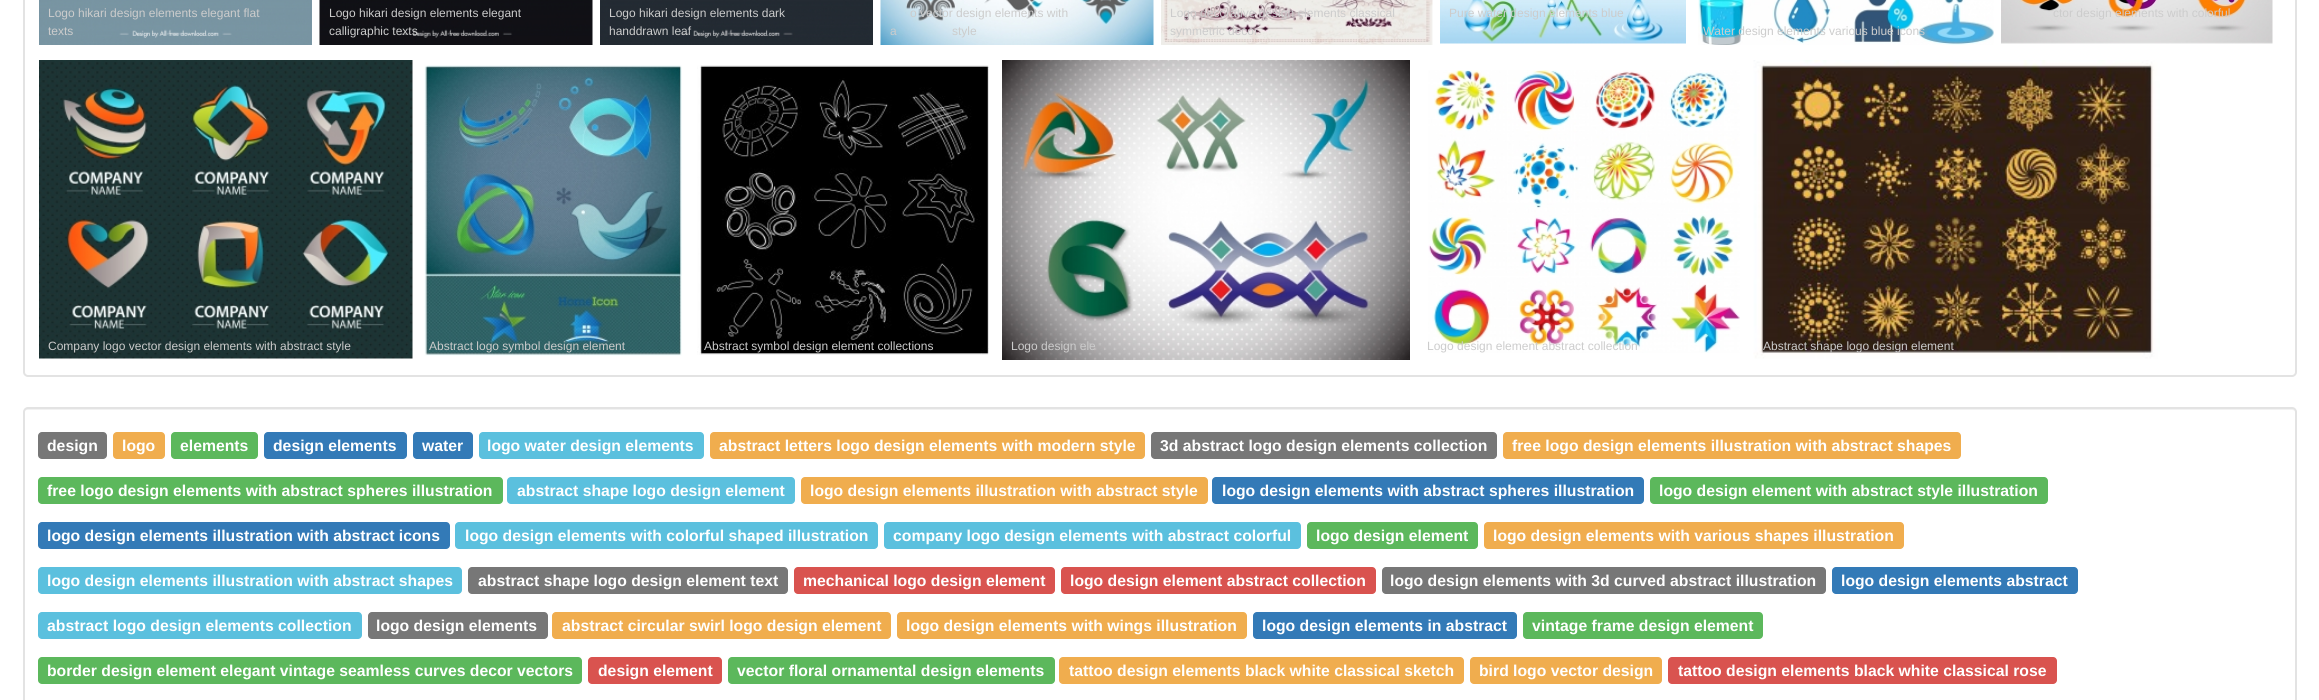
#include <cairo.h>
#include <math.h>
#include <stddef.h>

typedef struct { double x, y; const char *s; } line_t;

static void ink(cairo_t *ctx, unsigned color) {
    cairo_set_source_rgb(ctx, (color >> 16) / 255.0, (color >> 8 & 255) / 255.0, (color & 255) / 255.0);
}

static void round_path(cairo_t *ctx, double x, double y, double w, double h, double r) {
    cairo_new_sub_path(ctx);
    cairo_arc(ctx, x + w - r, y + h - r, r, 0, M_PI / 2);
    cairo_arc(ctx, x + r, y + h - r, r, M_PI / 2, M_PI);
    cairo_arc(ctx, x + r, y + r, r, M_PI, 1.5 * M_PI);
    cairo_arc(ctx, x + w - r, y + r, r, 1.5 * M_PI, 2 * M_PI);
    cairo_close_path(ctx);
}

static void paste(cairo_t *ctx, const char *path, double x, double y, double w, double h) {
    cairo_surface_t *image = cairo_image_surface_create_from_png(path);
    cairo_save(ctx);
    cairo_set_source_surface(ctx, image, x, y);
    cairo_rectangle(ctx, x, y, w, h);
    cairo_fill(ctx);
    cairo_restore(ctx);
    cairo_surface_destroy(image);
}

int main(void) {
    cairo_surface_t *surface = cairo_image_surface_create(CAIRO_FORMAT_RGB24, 2319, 700);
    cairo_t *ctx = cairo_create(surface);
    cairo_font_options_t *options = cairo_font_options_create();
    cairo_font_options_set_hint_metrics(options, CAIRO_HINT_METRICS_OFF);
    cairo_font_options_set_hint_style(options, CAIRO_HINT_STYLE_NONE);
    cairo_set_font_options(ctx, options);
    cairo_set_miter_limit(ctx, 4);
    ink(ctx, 0xFFFFFF);
    cairo_paint(ctx);
    round_path(ctx, 24, -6, 2272, 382, 4);
    ink(ctx, 0xE3E3E3);
    cairo_stroke(ctx);
    paste(ctx, "media/1.png", 39, 0, 273, 45);
    cairo_select_font_face(ctx, "Liberation Sans", CAIRO_FONT_SLANT_NORMAL, CAIRO_FONT_WEIGHT_NORMAL);
    cairo_set_font_size(ctx, 12);
    ink(ctx, 0xCCCCCC);
    cairo_move_to(ctx, 48, 17);
    cairo_show_text(ctx, "Logo hikari design elements elegant flat");
    cairo_move_to(ctx, 48, 35);
    cairo_show_text(ctx, "texts");
    paste(ctx, "media/2.png", 319, 0, 274, 45);
    cairo_move_to(ctx, 329, 17);
    cairo_show_text(ctx, "Logo hikari design elements elegant");
    cairo_move_to(ctx, 329, 35);
    cairo_show_text(ctx, "calligraphic texts");
    paste(ctx, "media/3.png", 600, 0, 273, 45);
    cairo_move_to(ctx, 609, 17);
    cairo_show_text(ctx, "Logo hikari design elements dark");
    cairo_move_to(ctx, 609, 35);
    cairo_show_text(ctx, "handdrawn leaf");
    paste(ctx, "media/4.png", 880, 0, 274, 45);
    {
        static const line_t items[] = {
            {910, 17, "o vector design elements with"},
            {890, 35, "a"},
            {952, 35, "style"},
        };
        for (size_t i = 0; i < sizeof items / sizeof *items; i++) {
            cairo_move_to(ctx, items[i].x, items[i].y);
            cairo_show_text(ctx, items[i].s);
        }
    }
    paste(ctx, "media/5.png", 1161, 0, 272, 45);
    cairo_move_to(ctx, 1170, 17);
    cairo_show_text(ctx, "Logo decorative design elements classical");
    cairo_move_to(ctx, 1170, 35);
    cairo_show_text(ctx, "symmetric decor");
    paste(ctx, "media/6.png", 1440, 0, 246, 44);
    cairo_move_to(ctx, 1449, 17);
    cairo_show_text(ctx, "Pure water design elements blue");
    paste(ctx, "media/7.png", 2001, 0, 272, 44);
    cairo_move_to(ctx, 2053, 17);
    cairo_show_text(ctx, "ctor design elements with colorful");
    paste(ctx, "media/8.png", 1698, 0, 296, 45);
    cairo_move_to(ctx, 1703, 35);
    cairo_show_text(ctx, "Water design elements various blue icons");
    paste(ctx, "media/9.png", 39, 60, 374, 299);
    cairo_move_to(ctx, 48, 350);
    cairo_show_text(ctx, "Company logo vector design elements with abstract style");
    paste(ctx, "media/10.png", 424, 65, 258, 291);
    cairo_move_to(ctx, 429, 350);
    cairo_show_text(ctx, "Abstract logo symbol design element");
    paste(ctx, "media/11.png", 697, 65, 292, 290);
    cairo_move_to(ctx, 704, 350);
    cairo_show_text(ctx, "Abstract symbol design element collections");
    paste(ctx, "media/12.png", 1002, 60, 408, 300);
    cairo_move_to(ctx, 1011, 350);
    cairo_show_text(ctx, "Logo design ele");
    paste(ctx, "media/13.png", 1428, 70, 312, 283);
    cairo_move_to(ctx, 1427, 350);
    cairo_show_text(ctx, "Logo design element abstract collection");
    paste(ctx, "media/14.png", 1753, 60, 407, 299);
    cairo_move_to(ctx, 1763, 350);
    cairo_show_text(ctx, "Abstract shape logo design element");
    ink(ctx, 0xF2F2F2);
    cairo_new_path(ctx);
    cairo_move_to(ctx, 27, 410);
    cairo_line_to(ctx, 2292, 410);
    cairo_curve_to(ctx, 2294, 410, 2295, 411, 2295, 412);
    cairo_curve_to(ctx, 2295, 410, 2294, 408, 2292, 408);
    cairo_line_to(ctx, 27, 408);
    cairo_curve_to(ctx, 25, 408, 24, 410, 24, 412);
    cairo_curve_to(ctx, 24, 411, 25, 410, 27, 410);
    cairo_close_path(ctx);
    cairo_fill(ctx);
    round_path(ctx, 24, 408, 2272, 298, 4);
    ink(ctx, 0xE3E3E3);
    cairo_stroke(ctx);
    ink(ctx, 0x777777);
    round_path(ctx, 38, 432, 69, 27, 4);
    cairo_fill(ctx);
    cairo_select_font_face(ctx, "Liberation Sans", CAIRO_FONT_SLANT_NORMAL, CAIRO_FONT_WEIGHT_BOLD);
    cairo_set_font_size(ctx, 15.75);
    ink(ctx, 0xFFFFFF);
    cairo_move_to(ctx, 47, 451);
    cairo_show_text(ctx, "design");
    ink(ctx, 0xF0AD4E);
    round_path(ctx, 113, 432, 52, 27, 4);
    cairo_fill(ctx);
    ink(ctx, 0xFFFFFF);
    cairo_move_to(ctx, 122, 451);
    cairo_show_text(ctx, "logo");
    ink(ctx, 0x5CB85C);
    round_path(ctx, 171, 432, 87, 27, 4);
    cairo_fill(ctx);
    ink(ctx, 0xFFFFFF);
    cairo_move_to(ctx, 180, 451);
    cairo_show_text(ctx, "elements");
    ink(ctx, 0x337AB7);
    round_path(ctx, 264, 432, 143, 27, 4);
    cairo_fill(ctx);
    ink(ctx, 0xFFFFFF);
    cairo_move_to(ctx, 273, 451);
    cairo_show_text(ctx, "design elements");
    ink(ctx, 0x337AB7);
    round_path(ctx, 413, 432, 60, 27, 4);
    cairo_fill(ctx);
    ink(ctx, 0xFFFFFF);
    cairo_move_to(ctx, 422, 451);
    cairo_show_text(ctx, "water");
    ink(ctx, 0x5BC0DE);
    round_path(ctx, 479, 432, 225, 27, 4);
    cairo_fill(ctx);
    ink(ctx, 0xFFFFFF);
    cairo_move_to(ctx, 487, 451);
    cairo_show_text(ctx, "logo water design elements");
    ink(ctx, 0xF0AD4E);
    round_path(ctx, 710, 432, 435, 27, 4);
    cairo_fill(ctx);
    ink(ctx, 0xFFFFFF);
    cairo_move_to(ctx, 719, 451);
    cairo_show_text(ctx, "abstract letters logo design elements with modern style");
    ink(ctx, 0x777777);
    round_path(ctx, 1151, 432, 346, 27, 4);
    cairo_fill(ctx);
    ink(ctx, 0xFFFFFF);
    cairo_move_to(ctx, 1160, 451);
    cairo_show_text(ctx, "3d abstract logo design elements collection");
    ink(ctx, 0xF0AD4E);
    round_path(ctx, 1503, 432, 458, 27, 4);
    cairo_fill(ctx);
    ink(ctx, 0xFFFFFF);
    cairo_move_to(ctx, 1512, 451);
    cairo_show_text(ctx, "free logo design elements illustration with abstract shapes");
    ink(ctx, 0x5CB85C);
    round_path(ctx, 38, 477, 465, 27, 4);
    cairo_fill(ctx);
    ink(ctx, 0xFFFFFF);
    cairo_move_to(ctx, 47, 496);
    cairo_show_text(ctx, "free logo design elements with abstract spheres illustration");
    ink(ctx, 0x5BC0DE);
    round_path(ctx, 507, 477, 288, 27, 4);
    cairo_fill(ctx);
    ink(ctx, 0xFFFFFF);
    cairo_move_to(ctx, 517, 496);
    cairo_show_text(ctx, "abstract shape logo design element");
    ink(ctx, 0xF0AD4E);
    round_path(ctx, 801, 477, 407, 27, 4);
    cairo_fill(ctx);
    ink(ctx, 0xFFFFFF);
    cairo_move_to(ctx, 810, 496);
    cairo_show_text(ctx, "logo design elements illustration with abstract style");
    ink(ctx, 0x337AB7);
    round_path(ctx, 1212, 477, 432, 27, 4);
    cairo_fill(ctx);
    ink(ctx, 0xFFFFFF);
    cairo_move_to(ctx, 1222, 496);
    cairo_show_text(ctx, "logo design elements with abstract spheres illustration");
    ink(ctx, 0x5CB85C);
    round_path(ctx, 1650, 477, 398, 27, 4);
    cairo_fill(ctx);
    ink(ctx, 0xFFFFFF);
    cairo_move_to(ctx, 1659, 496);
    cairo_show_text(ctx, "logo design element with abstract style illustration");
    ink(ctx, 0x337AB7);
    round_path(ctx, 38, 522, 412, 27, 4);
    cairo_fill(ctx);
    ink(ctx, 0xFFFFFF);
    cairo_move_to(ctx, 47, 541);
    cairo_show_text(ctx, "logo design elements illustration with abstract icons");
    ink(ctx, 0x5BC0DE);
    round_path(ctx, 455, 522, 423, 27, 4);
    cairo_fill(ctx);
    ink(ctx, 0xFFFFFF);
    cairo_move_to(ctx, 465, 541);
    cairo_show_text(ctx, "logo design elements with colorful shaped illustration");
    ink(ctx, 0x5BC0DE);
    round_path(ctx, 884, 522, 417, 27, 4);
    cairo_fill(ctx);
    ink(ctx, 0xFFFFFF);
    cairo_move_to(ctx, 893, 541);
    cairo_show_text(ctx, "company logo design elements with abstract colorful");
    ink(ctx, 0x5CB85C);
    round_path(ctx, 1307, 522, 171, 27, 4);
    cairo_fill(ctx);
    ink(ctx, 0xFFFFFF);
    cairo_move_to(ctx, 1316, 541);
    cairo_show_text(ctx, "logo design element");
    ink(ctx, 0xF0AD4E);
    round_path(ctx, 1484, 522, 420, 27, 4);
    cairo_fill(ctx);
    ink(ctx, 0xFFFFFF);
    cairo_move_to(ctx, 1493, 541);
    cairo_show_text(ctx, "logo design elements with various shapes illustration");
    ink(ctx, 0x5BC0DE);
    round_path(ctx, 38, 567, 424, 27, 4);
    cairo_fill(ctx);
    ink(ctx, 0xFFFFFF);
    cairo_move_to(ctx, 47, 586);
    cairo_show_text(ctx, "logo design elements illustration with abstract shapes");
    ink(ctx, 0x777777);
    round_path(ctx, 468, 567, 320, 27, 4);
    cairo_fill(ctx);
    ink(ctx, 0xFFFFFF);
    cairo_move_to(ctx, 478, 586);
    cairo_show_text(ctx, "abstract shape logo design element text");
    ink(ctx, 0xD9534F);
    round_path(ctx, 794, 567, 261, 27, 4);
    cairo_fill(ctx);
    ink(ctx, 0xFFFFFF);
    cairo_move_to(ctx, 803, 586);
    cairo_show_text(ctx, "mechanical logo design element");
    ink(ctx, 0xD9534F);
    round_path(ctx, 1061, 567, 315, 27, 4);
    cairo_fill(ctx);
    ink(ctx, 0xFFFFFF);
    cairo_move_to(ctx, 1070, 586);
    cairo_show_text(ctx, "logo design element abstract collection");
    ink(ctx, 0x777777);
    round_path(ctx, 1382, 567, 444, 27, 4);
    cairo_fill(ctx);
    ink(ctx, 0xFFFFFF);
    cairo_move_to(ctx, 1390, 586);
    cairo_show_text(ctx, "logo design elements with 3d curved abstract illustration");
    ink(ctx, 0x337AB7);
    round_path(ctx, 1832, 567, 246, 27, 4);
    cairo_fill(ctx);
    ink(ctx, 0xFFFFFF);
    cairo_move_to(ctx, 1841, 586);
    cairo_show_text(ctx, "logo design elements abstract");
    ink(ctx, 0x5BC0DE);
    round_path(ctx, 38, 612, 324, 27, 4);
    cairo_fill(ctx);
    ink(ctx, 0xFFFFFF);
    cairo_move_to(ctx, 47, 631);
    cairo_show_text(ctx, "abstract logo design elements collection");
    ink(ctx, 0x777777);
    round_path(ctx, 368, 612, 180, 27, 4);
    cairo_fill(ctx);
    ink(ctx, 0xFFFFFF);
    cairo_move_to(ctx, 376, 631);
    cairo_show_text(ctx, "logo design elements");
    ink(ctx, 0xF0AD4E);
    round_path(ctx, 552, 612, 339, 27, 4);
    cairo_fill(ctx);
    ink(ctx, 0xFFFFFF);
    cairo_move_to(ctx, 562, 631);
    cairo_show_text(ctx, "abstract circular swirl logo design element");
    ink(ctx, 0xF0AD4E);
    round_path(ctx, 897, 612, 350, 27, 4);
    cairo_fill(ctx);
    ink(ctx, 0xFFFFFF);
    cairo_move_to(ctx, 906, 631);
    cairo_show_text(ctx, "logo design elements with wings illustration");
    ink(ctx, 0x337AB7);
    round_path(ctx, 1253, 612, 264, 27, 4);
    cairo_fill(ctx);
    ink(ctx, 0xFFFFFF);
    cairo_move_to(ctx, 1262, 631);
    cairo_show_text(ctx, "logo design elements in abstract");
    ink(ctx, 0x5CB85C);
    round_path(ctx, 1523, 612, 240, 27, 4);
    cairo_fill(ctx);
    ink(ctx, 0xFFFFFF);
    cairo_move_to(ctx, 1532, 631);
    cairo_show_text(ctx, "vintage frame design element");
    ink(ctx, 0x5CB85C);
    round_path(ctx, 38, 657, 544, 27, 4);
    cairo_fill(ctx);
    ink(ctx, 0xFFFFFF);
    cairo_move_to(ctx, 47, 676);
    cairo_show_text(ctx, "border design element elegant vintage seamless curves decor vectors");
    ink(ctx, 0xD9534F);
    round_path(ctx, 588, 657, 134, 27, 4);
    cairo_fill(ctx);
    ink(ctx, 0xFFFFFF);
    cairo_move_to(ctx, 598, 676);
    cairo_show_text(ctx, "design element");
    ink(ctx, 0x5CB85C);
    round_path(ctx, 728, 657, 327, 27, 4);
    cairo_fill(ctx);
    ink(ctx, 0xFFFFFF);
    cairo_move_to(ctx, 737, 676);
    cairo_show_text(ctx, "vector floral ornamental design elements");
    ink(ctx, 0xF0AD4E);
    round_path(ctx, 1059, 657, 405, 27, 4);
    cairo_fill(ctx);
    ink(ctx, 0xFFFFFF);
    cairo_move_to(ctx, 1069, 676);
    cairo_show_text(ctx, "tattoo design elements black white classical sketch");
    ink(ctx, 0xF0AD4E);
    round_path(ctx, 1470, 657, 192, 27, 4);
    cairo_fill(ctx);
    ink(ctx, 0xFFFFFF);
    cairo_move_to(ctx, 1479, 676);
    cairo_show_text(ctx, "bird logo vector design");
    ink(ctx, 0xD9534F);
    round_path(ctx, 1668, 657, 389, 27, 4);
    cairo_fill(ctx);
    ink(ctx, 0xFFFFFF);
    cairo_move_to(ctx, 1678, 676);
    cairo_show_text(ctx, "tattoo design elements black white classical rose");
    cairo_surface_write_to_png(surface, "image.png");
    cairo_font_options_destroy(options);
    cairo_destroy(ctx);
    cairo_surface_destroy(surface);
    return 0;
}
